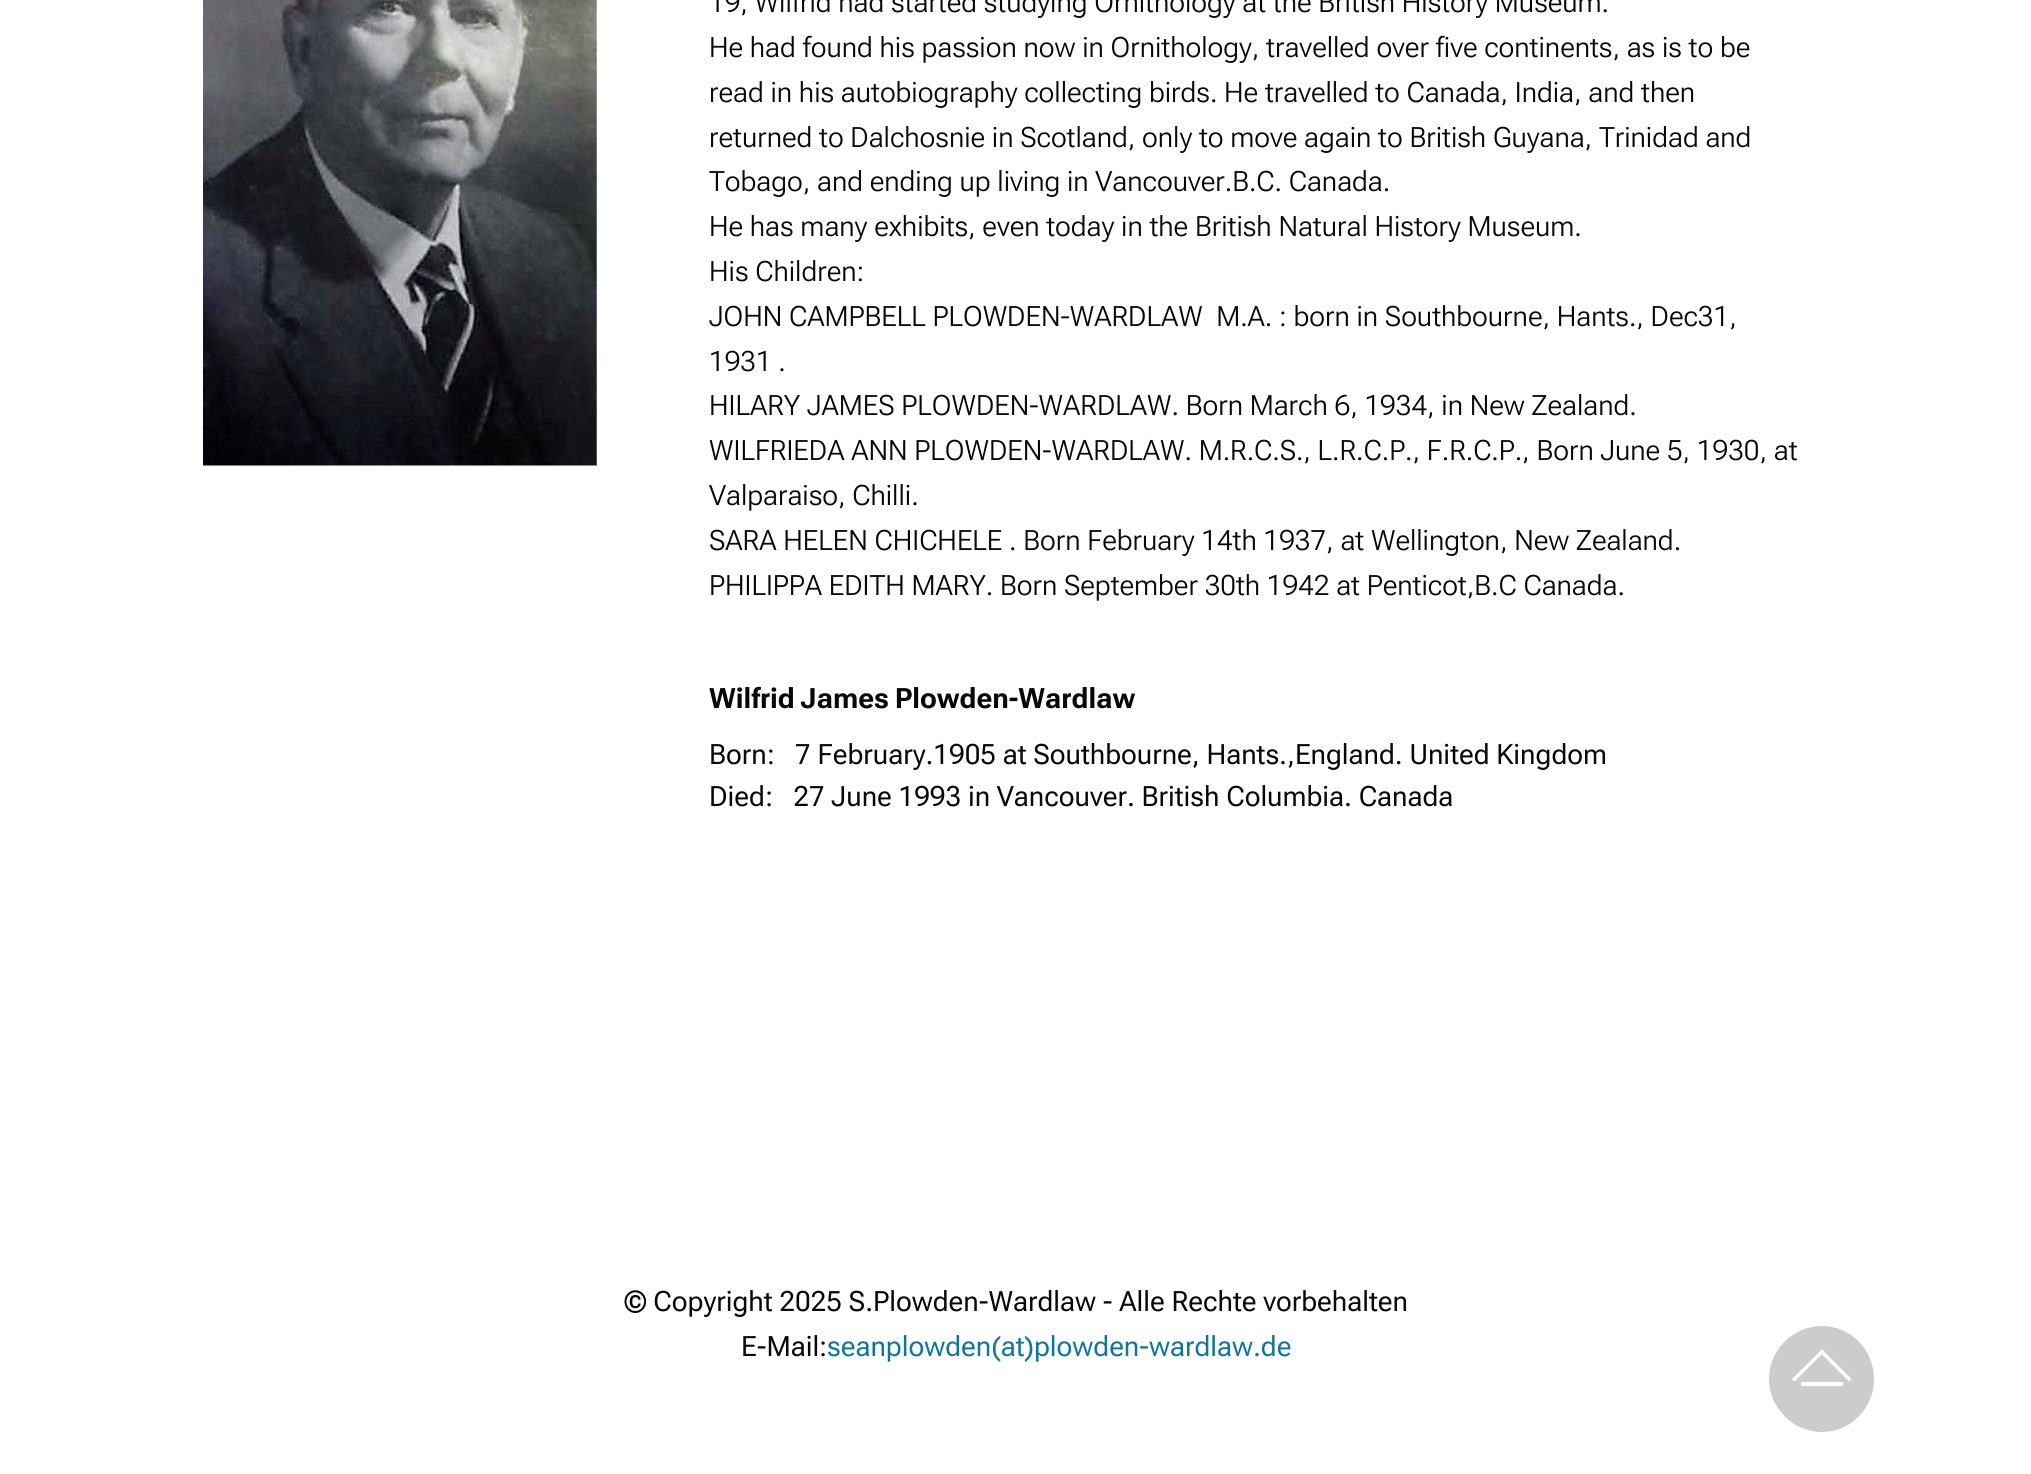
#include <cairo.h>
#include <math.h>
#include <stddef.h>

typedef struct { double x, y; const char *s; } line_t;

static void ink(cairo_t *ctx, unsigned color) {
    cairo_set_source_rgb(ctx, (color >> 16) / 255.0, (color >> 8 & 255) / 255.0, (color & 255) / 255.0);
}

static void write_spaced(cairo_t *ctx, double x, double y, const char *s, double letter, double word) {
    cairo_move_to(ctx, x, y);
    while (*s) {
        char ch[5] = {0};
        int n = 0;
        do ch[n++] = *s++; while ((*s & 0xC0) == 0x80);
        cairo_show_text(ctx, ch);
        cairo_rel_move_to(ctx, letter + word * (*ch == ' '), 0);
    }
}

static void paste(cairo_t *ctx, const char *path, double x, double y, double w, double h) {
    cairo_surface_t *image = cairo_image_surface_create_from_png(path);
    cairo_save(ctx);
    cairo_set_source_surface(ctx, image, x, y);
    cairo_rectangle(ctx, x, y, w, h);
    cairo_fill(ctx);
    cairo_restore(ctx);
    cairo_surface_destroy(image);
}

int main(void) {
    cairo_surface_t *surface = cairo_image_surface_create(CAIRO_FORMAT_RGB24, 2031, 1474);
    cairo_t *ctx = cairo_create(surface);
    cairo_font_options_t *options = cairo_font_options_create();
    cairo_font_options_set_hint_metrics(options, CAIRO_HINT_METRICS_OFF);
    cairo_font_options_set_hint_style(options, CAIRO_HINT_STYLE_NONE);
    cairo_set_font_options(ctx, options);
    cairo_set_miter_limit(ctx, 4);
    ink(ctx, 0xFFFFFF);
    cairo_paint(ctx);
    paste(ctx, "media/1.png", 203, 0, 394, 466);
    cairo_select_font_face(ctx, "Roboto Flex Light", CAIRO_FONT_SLANT_NORMAL, CAIRO_FONT_WEIGHT_NORMAL);
    cairo_set_font_size(ctx, 28);
    ink(ctx, 0x080808);
    {
        static const line_t items[] = {
            {709, 12, "19, Wilfrid had started studying Ornithology at the British History Museum."},
            {709, 57, "He had found his passion now in Ornithology, travelled over five continents, as is to be"},
            {709, 102, "read in his autobiography collecting birds. He travelled to Canada, India, and then"},
            {709, 147, "returned to Dalchosnie in Scotland, only to move again to British Guyana, Trinidad and"},
            {709, 191, "Tobago, and ending up living in Vancouver.B.C. Canada."},
            {709, 236, "He has many exhibits, even today in the British Natural History Museum."},
            {709, 281, "His Children:"},
            {709, 326, "JOHN CAMPBELL PLOWDEN-WARDLAW  M.A. : born in Southbourne, Hants., Dec31,"},
            {709, 371, "1931 ."},
            {709, 415, "HILARY JAMES PLOWDEN-WARDLAW. Born March 6, 1934, in New Zealand."},
            {709, 460, "WILFRIEDA ANN PLOWDEN-WARDLAW. M.R.C.S., L.R.C.P., F.R.C.P., Born June 5, 1930, at"},
            {709, 505, "Valparaiso, Chilli."},
            {709, 550, "SARA HELEN CHICHELE . Born February 14th 1937, at Wellington, New Zealand."},
            {709, 595, "PHILIPPA EDITH MARY. Born September 30th 1942 at Penticot,B.C Canada."},
        };
        for (size_t i = 0; i < sizeof items / sizeof *items; i++) {
            cairo_move_to(ctx, items[i].x, items[i].y);
            cairo_show_text(ctx, items[i].s);
        }
    }
    cairo_select_font_face(ctx, "Roboto Flex", CAIRO_FONT_SLANT_NORMAL, CAIRO_FONT_WEIGHT_BOLD);
    write_spaced(ctx, 709, 708, "Wilfrid James Plowden-Wardlaw", 0, -1);
    cairo_select_font_face(ctx, "Roboto Flex", CAIRO_FONT_SLANT_NORMAL, CAIRO_FONT_WEIGHT_NORMAL);
    {
        static const line_t items[] = {
            {709, 764, "Born:   7 February.1905 at Southbourne, Hants.,England. United Kingdom"},
            {709, 806, "Died:   27 June 1993 in Vancouver. British Columbia. Canada"},
            {624, 1311, "© Copyright 2025 S.Plowden-Wardlaw - Alle Rechte vorbehalten"},
            {741, 1356, "E-Mail:"},
        };
        for (size_t i = 0; i < sizeof items / sizeof *items; i++) {
            cairo_move_to(ctx, items[i].x, items[i].y);
            cairo_show_text(ctx, items[i].s);
        }
    }
    ink(ctx, 0x0F7699);
    cairo_move_to(ctx, 827, 1356);
    cairo_show_text(ctx, "seanplowden(at)plowden-wardlaw.de");
    ink(ctx, 0xCCCCCC);
    cairo_new_path(ctx);
    cairo_move_to(ctx, 1822, 1432);
    cairo_curve_to(ctx, 1793, 1432, 1769, 1408, 1769, 1379);
    cairo_curve_to(ctx, 1769, 1350, 1793, 1326, 1822, 1326);
    cairo_curve_to(ctx, 1851, 1326, 1874, 1350, 1874, 1379);
    cairo_curve_to(ctx, 1874, 1408, 1851, 1432, 1822, 1432);
    cairo_close_path(ctx);
    cairo_fill(ctx);
    ink(ctx, 0xFFFFFF);
    cairo_new_path(ctx);
    cairo_move_to(ctx, 1792, 1379);
    cairo_line_to(ctx, 1822, 1349.5);
    cairo_line_to(ctx, 1824, 1352);
    cairo_line_to(ctx, 1794.5, 1381.5);
    cairo_close_path(ctx);
    cairo_fill(ctx);
    cairo_new_path(ctx);
    cairo_move_to(ctx, 1819.5, 1352);
    cairo_line_to(ctx, 1822, 1349.5);
    cairo_line_to(ctx, 1851.5, 1379);
    cairo_line_to(ctx, 1849, 1381.5);
    cairo_close_path(ctx);
    cairo_fill(ctx);
    cairo_rectangle(ctx, 1801, 1382, 42, 4);
    cairo_fill(ctx);
    cairo_surface_write_to_png(surface, "image.png");
    cairo_font_options_destroy(options);
    cairo_destroy(ctx);
    cairo_surface_destroy(surface);
    return 0;
}
